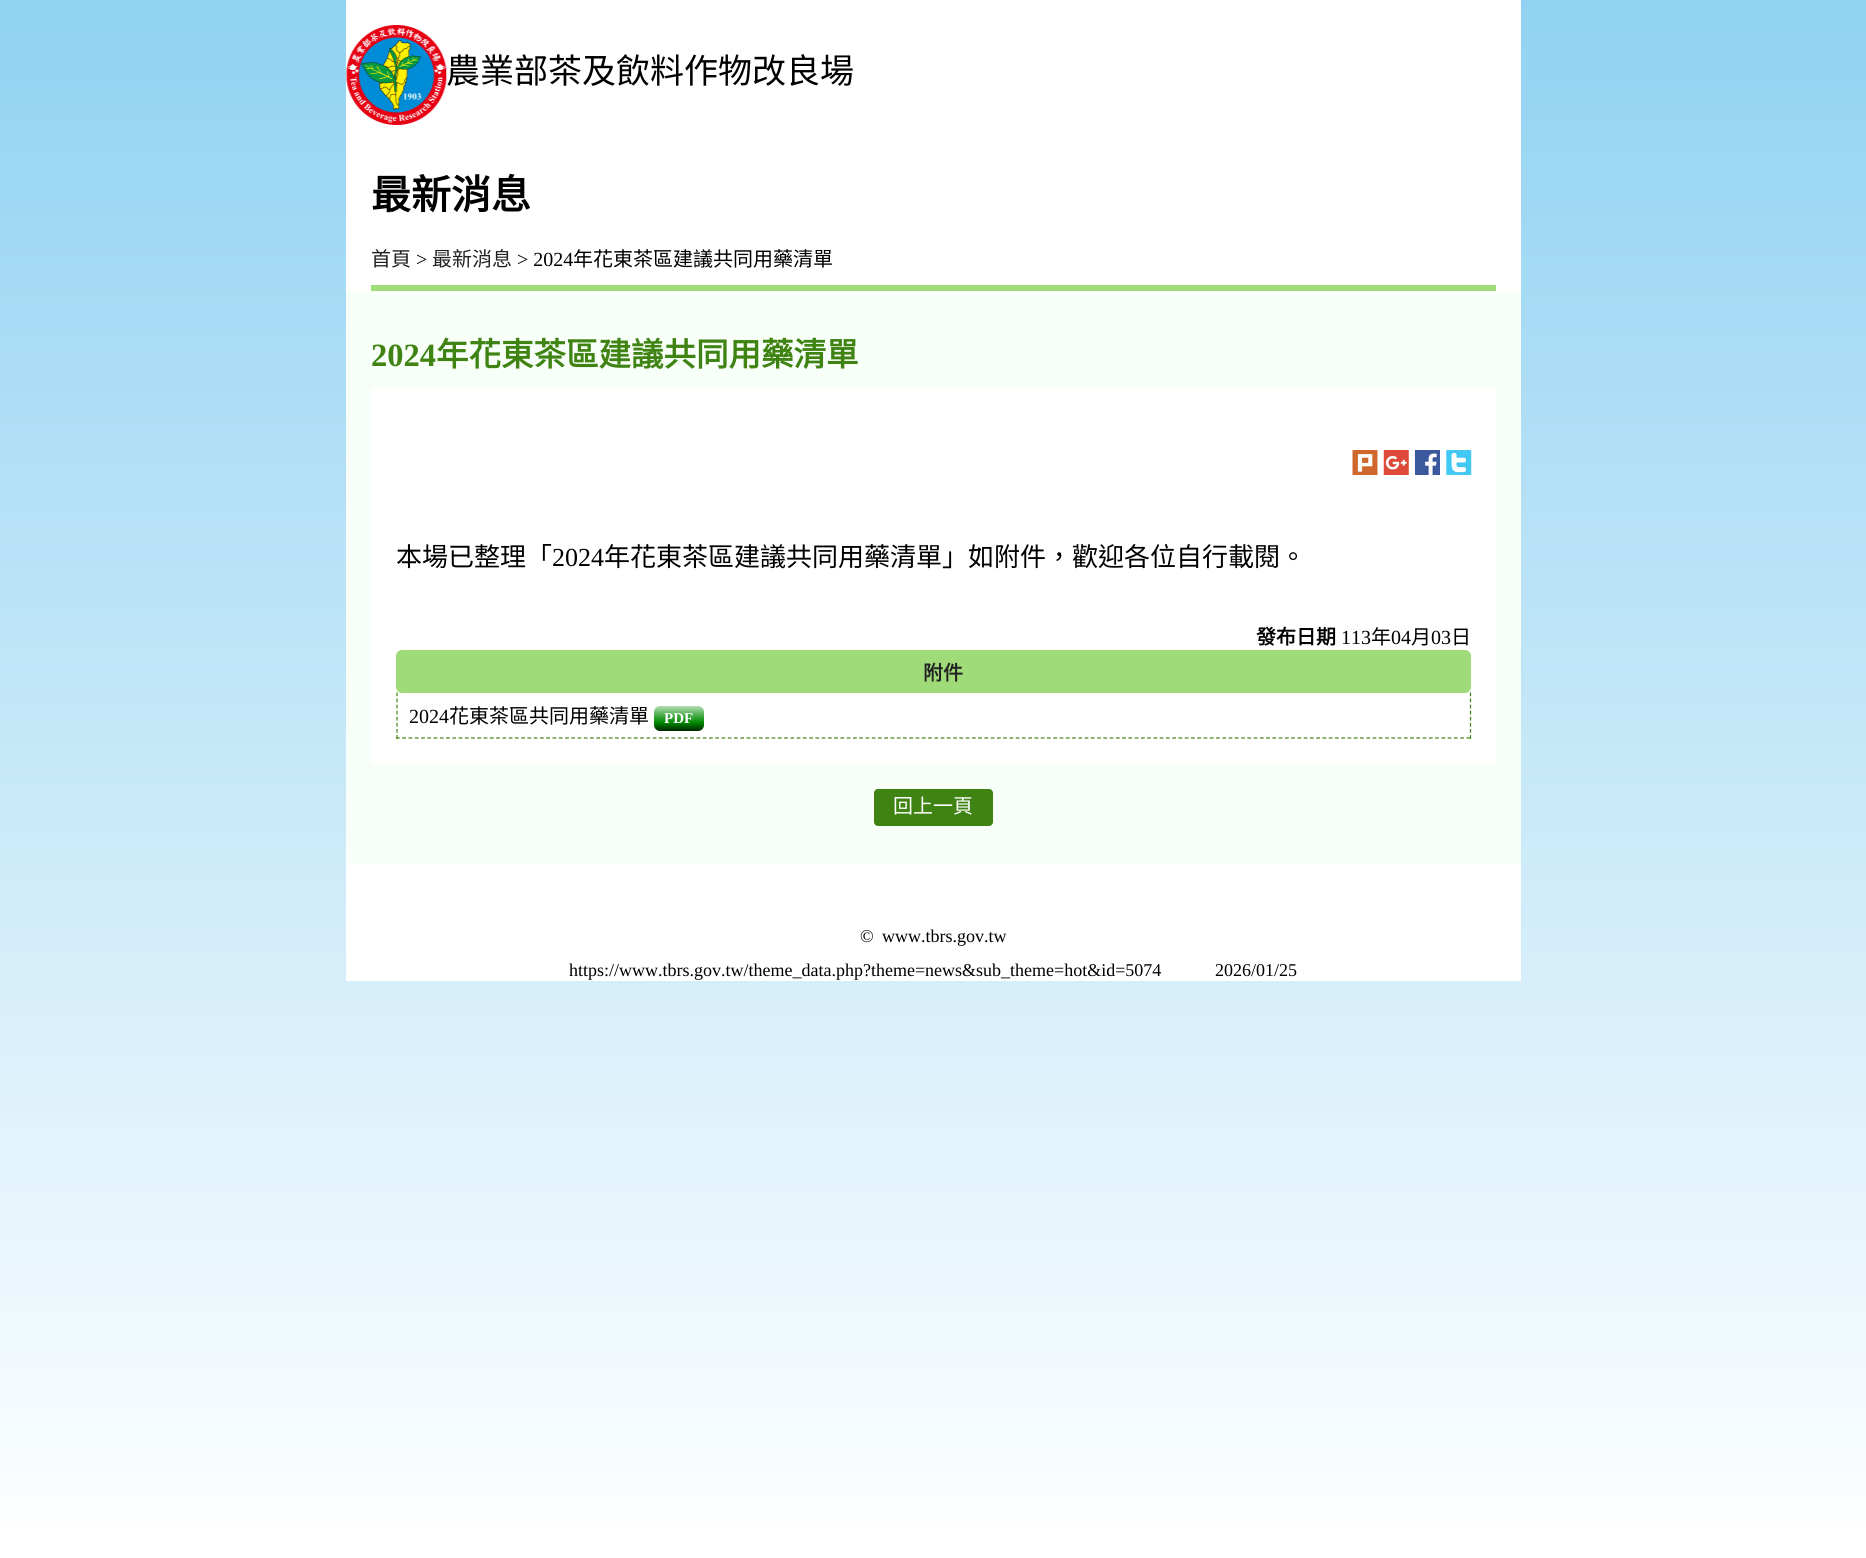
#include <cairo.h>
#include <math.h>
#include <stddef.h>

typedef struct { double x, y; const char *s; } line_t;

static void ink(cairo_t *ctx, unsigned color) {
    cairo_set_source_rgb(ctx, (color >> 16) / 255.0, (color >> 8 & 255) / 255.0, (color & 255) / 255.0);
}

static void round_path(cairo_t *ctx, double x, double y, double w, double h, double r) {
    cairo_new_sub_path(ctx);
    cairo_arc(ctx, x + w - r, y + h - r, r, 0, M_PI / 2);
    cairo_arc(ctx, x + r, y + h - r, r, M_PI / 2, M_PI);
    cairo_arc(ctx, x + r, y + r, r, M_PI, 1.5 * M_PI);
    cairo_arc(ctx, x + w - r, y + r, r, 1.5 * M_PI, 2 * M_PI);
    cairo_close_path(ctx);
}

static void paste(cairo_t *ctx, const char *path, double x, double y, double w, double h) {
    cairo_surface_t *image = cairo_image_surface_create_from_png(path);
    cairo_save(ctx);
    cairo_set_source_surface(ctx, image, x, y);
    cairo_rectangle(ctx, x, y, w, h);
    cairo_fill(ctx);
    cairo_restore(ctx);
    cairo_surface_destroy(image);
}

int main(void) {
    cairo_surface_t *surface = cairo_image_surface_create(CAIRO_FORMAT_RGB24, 1866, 1558);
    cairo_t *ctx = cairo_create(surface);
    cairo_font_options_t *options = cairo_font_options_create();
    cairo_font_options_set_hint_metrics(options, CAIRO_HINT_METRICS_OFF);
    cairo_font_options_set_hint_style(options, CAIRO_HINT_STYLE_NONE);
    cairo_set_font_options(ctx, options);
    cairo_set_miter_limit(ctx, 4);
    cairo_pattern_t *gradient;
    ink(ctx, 0xFFFFFF);
    cairo_paint(ctx);
    gradient = cairo_pattern_create_linear(0, 0, 0, 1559);
    cairo_pattern_add_color_stop_rgba(gradient, 0, 0.569, 0.824, 0.949, 1);
    cairo_pattern_add_color_stop_rgba(gradient, 1, 1, 1, 1, 1);
    cairo_set_source(ctx, gradient);
    cairo_pattern_destroy(gradient);
    cairo_rectangle(ctx, 0, 0, 1866, 1524);
    cairo_fill(ctx);
    ink(ctx, 0xFFFFFF);
    cairo_rectangle(ctx, 346, 0, 1175, 981);
    cairo_fill(ctx);
    paste(ctx, "media/1.png", 346, 25, 101, 100);
    cairo_select_font_face(ctx, "Noto Sans CJK TC", CAIRO_FONT_SLANT_NORMAL, CAIRO_FONT_WEIGHT_NORMAL);
    cairo_set_font_size(ctx, 34);
    ink(ctx, 0x000000);
    cairo_move_to(ctx, 446, 83);
    cairo_show_text(ctx, "農業部茶及飲料作物改良場");
    ink(ctx, 0xA0DB79);
    cairo_rectangle(ctx, 371, 285, 1125, 6);
    cairo_fill(ctx);
    cairo_select_font_face(ctx, "Noto Sans CJK TC", CAIRO_FONT_SLANT_NORMAL, CAIRO_FONT_WEIGHT_BOLD);
    cairo_set_font_size(ctx, 40);
    ink(ctx, 0x000000);
    cairo_move_to(ctx, 371, 209);
    cairo_show_text(ctx, "最新消息");
    cairo_select_font_face(ctx, "Noto Sans CJK TC", CAIRO_FONT_SLANT_NORMAL, CAIRO_FONT_WEIGHT_NORMAL);
    cairo_set_font_size(ctx, 20);
    ink(ctx, 0x222222);
    cairo_move_to(ctx, 371, 266);
    cairo_show_text(ctx, "首頁");
    cairo_select_font_face(ctx, "Liberation Serif", CAIRO_FONT_SLANT_NORMAL, CAIRO_FONT_WEIGHT_NORMAL);
    ink(ctx, 0x000000);
    cairo_move_to(ctx, 416, 266);
    cairo_show_text(ctx, ">");
    cairo_select_font_face(ctx, "Noto Sans CJK TC", CAIRO_FONT_SLANT_NORMAL, CAIRO_FONT_WEIGHT_NORMAL);
    ink(ctx, 0x222222);
    cairo_move_to(ctx, 432, 266);
    cairo_show_text(ctx, "最新消息");
    cairo_select_font_face(ctx, "Liberation Serif", CAIRO_FONT_SLANT_NORMAL, CAIRO_FONT_WEIGHT_NORMAL);
    ink(ctx, 0x000000);
    cairo_move_to(ctx, 517, 266);
    cairo_show_text(ctx, "> 2024");
    cairo_select_font_face(ctx, "Noto Sans CJK TC", CAIRO_FONT_SLANT_NORMAL, CAIRO_FONT_WEIGHT_NORMAL);
    cairo_move_to(ctx, 573, 266);
    cairo_show_text(ctx, "年花東茶區建議共同用藥清單");
    ink(ctx, 0xF8FFF8);
    cairo_rectangle(ctx, 346, 291, 1175, 573);
    cairo_fill(ctx);
    cairo_select_font_face(ctx, "Liberation Serif", CAIRO_FONT_SLANT_NORMAL, CAIRO_FONT_WEIGHT_BOLD);
    cairo_set_font_size(ctx, 32.5);
    ink(ctx, 0x3F8412);
    cairo_move_to(ctx, 371, 366);
    cairo_show_text(ctx, "2024");
    cairo_select_font_face(ctx, "Noto Sans CJK TC", CAIRO_FONT_SLANT_NORMAL, CAIRO_FONT_WEIGHT_BOLD);
    cairo_move_to(ctx, 436, 366);
    cairo_show_text(ctx, "年花東茶區建議共同用藥清單");
    ink(ctx, 0xFFFFFF);
    cairo_rectangle(ctx, 371, 388, 1125, 376);
    cairo_fill(ctx);
    paste(ctx, "media/2.png", 1352, 450, 26, 25);
    paste(ctx, "media/3.png", 1383, 450, 26, 25);
    paste(ctx, "media/4.png", 1415, 450, 25, 25);
    paste(ctx, "media/5.png", 1446, 450, 26, 25);
    cairo_select_font_face(ctx, "Noto Sans CJK TC", CAIRO_FONT_SLANT_NORMAL, CAIRO_FONT_WEIGHT_NORMAL);
    cairo_set_font_size(ctx, 26);
    ink(ctx, 0x000000);
    cairo_move_to(ctx, 396, 566);
    cairo_show_text(ctx, "本場已整理「");
    cairo_select_font_face(ctx, "Liberation Serif", CAIRO_FONT_SLANT_NORMAL, CAIRO_FONT_WEIGHT_NORMAL);
    cairo_move_to(ctx, 552, 566);
    cairo_show_text(ctx, "2024");
    cairo_select_font_face(ctx, "Noto Sans CJK TC", CAIRO_FONT_SLANT_NORMAL, CAIRO_FONT_WEIGHT_NORMAL);
    cairo_move_to(ctx, 604, 566);
    cairo_show_text(ctx, "年花東茶區建議共同用藥清單」如附件，歡迎各位自行載閱。");
    cairo_select_font_face(ctx, "Noto Sans CJK TC", CAIRO_FONT_SLANT_NORMAL, CAIRO_FONT_WEIGHT_BOLD);
    cairo_set_font_size(ctx, 20);
    cairo_move_to(ctx, 1256, 644);
    cairo_show_text(ctx, "發布日期");
    cairo_select_font_face(ctx, "Liberation Serif", CAIRO_FONT_SLANT_NORMAL, CAIRO_FONT_WEIGHT_NORMAL);
    cairo_move_to(ctx, 1341, 644);
    cairo_show_text(ctx, "113");
    cairo_select_font_face(ctx, "Noto Sans CJK TC", CAIRO_FONT_SLANT_NORMAL, CAIRO_FONT_WEIGHT_NORMAL);
    cairo_move_to(ctx, 1371, 644);
    cairo_show_text(ctx, "年");
    cairo_select_font_face(ctx, "Liberation Serif", CAIRO_FONT_SLANT_NORMAL, CAIRO_FONT_WEIGHT_NORMAL);
    cairo_move_to(ctx, 1391, 644);
    cairo_show_text(ctx, "04");
    cairo_select_font_face(ctx, "Noto Sans CJK TC", CAIRO_FONT_SLANT_NORMAL, CAIRO_FONT_WEIGHT_NORMAL);
    cairo_move_to(ctx, 1411, 644);
    cairo_show_text(ctx, "月");
    cairo_select_font_face(ctx, "Liberation Serif", CAIRO_FONT_SLANT_NORMAL, CAIRO_FONT_WEIGHT_NORMAL);
    cairo_move_to(ctx, 1431, 644);
    cairo_show_text(ctx, "03");
    cairo_select_font_face(ctx, "Noto Sans CJK TC", CAIRO_FONT_SLANT_NORMAL, CAIRO_FONT_WEIGHT_NORMAL);
    cairo_move_to(ctx, 1451, 644);
    cairo_show_text(ctx, "日");
    ink(ctx, 0xA0DB79);
    round_path(ctx, 396, 650, 1075, 43, 6);
    cairo_fill(ctx);
    cairo_select_font_face(ctx, "Noto Sans CJK TC", CAIRO_FONT_SLANT_NORMAL, CAIRO_FONT_WEIGHT_BOLD);
    ink(ctx, 0x222222);
    cairo_move_to(ctx, 923, 680);
    cairo_show_text(ctx, "附件");
    cairo_new_path(ctx);
    cairo_move_to(ctx, 1470.5, 692.5);
    cairo_line_to(ctx, 1470.5, 739);
    ink(ctx, 0x3F8412);
    cairo_set_line_width(ctx, 1.2);
    cairo_set_dash(ctx, (double[]){3.75, 2.33}, 2, 0);
    cairo_stroke(ctx);
    cairo_new_path(ctx);
    cairo_move_to(ctx, 396, 738);
    cairo_line_to(ctx, 1471, 738);
    cairo_set_dash(ctx, (double[]){3.75, 2.51}, 2, 0);
    cairo_stroke(ctx);
    cairo_new_path(ctx);
    cairo_move_to(ctx, 397, 692.5);
    cairo_line_to(ctx, 397, 739);
    cairo_set_dash(ctx, (double[]){3.75, 2.33}, 2, 0);
    cairo_stroke(ctx);
    cairo_select_font_face(ctx, "Liberation Serif", CAIRO_FONT_SLANT_NORMAL, CAIRO_FONT_WEIGHT_NORMAL);
    ink(ctx, 0x000000);
    cairo_move_to(ctx, 409, 723);
    cairo_show_text(ctx, "2024");
    cairo_select_font_face(ctx, "Noto Sans CJK TC", CAIRO_FONT_SLANT_NORMAL, CAIRO_FONT_WEIGHT_NORMAL);
    cairo_move_to(ctx, 449, 723);
    cairo_show_text(ctx, "花東茶區共同用藥清單");
    gradient = cairo_pattern_create_linear(679, 706, 679, 731);
    cairo_pattern_add_color_stop_rgba(gradient, 0, 0.706, 0.867, 0.706, 1);
    cairo_pattern_add_color_stop_rgba(gradient, 0.17, 0.514, 0.78, 0.514, 1);
    cairo_pattern_add_color_stop_rgba(gradient, 0.33, 0.322, 0.694, 0.322, 1);
    cairo_pattern_add_color_stop_rgba(gradient, 0.67, 0, 0.541, 0, 1);
    cairo_pattern_add_color_stop_rgba(gradient, 0.83, 0, 0.341, 0, 1);
    cairo_pattern_add_color_stop_rgba(gradient, 1, 0, 0.141, 0, 1);
    cairo_set_source(ctx, gradient);
    cairo_pattern_destroy(gradient);
    round_path(ctx, 654, 706, 50, 25, 6);
    cairo_fill(ctx);
    cairo_select_font_face(ctx, "Liberation Serif", CAIRO_FONT_SLANT_NORMAL, CAIRO_FONT_WEIGHT_BOLD);
    cairo_set_font_size(ctx, 15);
    ink(ctx, 0xFFFFFF);
    cairo_move_to(ctx, 664, 723);
    cairo_show_text(ctx, "PDF");
    ink(ctx, 0x3F8412);
    round_path(ctx, 874, 789, 119, 37, 4);
    cairo_fill(ctx);
    cairo_select_font_face(ctx, "Noto Sans CJK TC", CAIRO_FONT_SLANT_NORMAL, CAIRO_FONT_WEIGHT_NORMAL);
    cairo_set_font_size(ctx, 20);
    ink(ctx, 0xFFFFFF);
    cairo_move_to(ctx, 893, 813);
    cairo_show_text(ctx, "回上一頁");
    cairo_select_font_face(ctx, "Liberation Serif", CAIRO_FONT_SLANT_NORMAL, CAIRO_FONT_WEIGHT_NORMAL);
    cairo_set_font_size(ctx, 18);
    ink(ctx, 0x000000);
    {
        static const line_t items[] = {
            {860, 942, "©"},
            {882, 942, "www.tbrs.gov.tw"},
            {569, 976, "https://www.tbrs.gov.tw/theme_data.php?theme=news&sub_theme=hot&id=5074"},
            {1215, 976, "2026/01/25"},
        };
        for (size_t i = 0; i < sizeof items / sizeof *items; i++) {
            cairo_move_to(ctx, items[i].x, items[i].y);
            cairo_show_text(ctx, items[i].s);
        }
    }
    cairo_surface_write_to_png(surface, "image.png");
    cairo_font_options_destroy(options);
    cairo_destroy(ctx);
    cairo_surface_destroy(surface);
    return 0;
}
